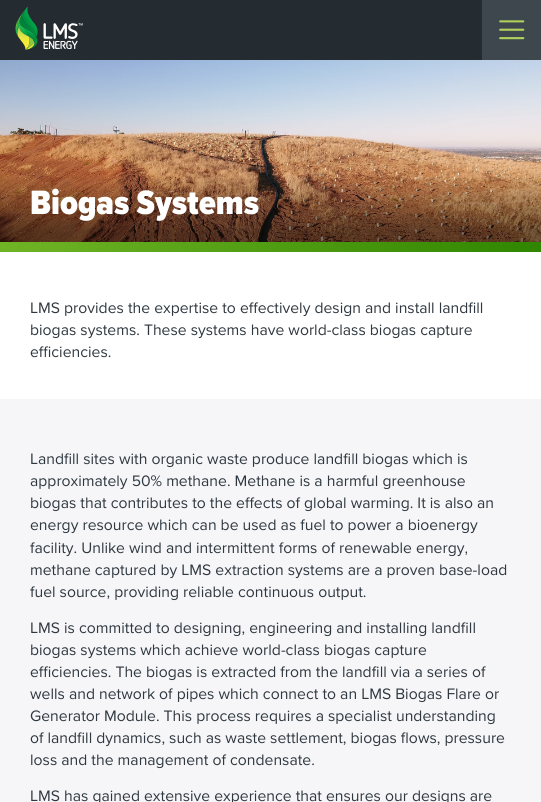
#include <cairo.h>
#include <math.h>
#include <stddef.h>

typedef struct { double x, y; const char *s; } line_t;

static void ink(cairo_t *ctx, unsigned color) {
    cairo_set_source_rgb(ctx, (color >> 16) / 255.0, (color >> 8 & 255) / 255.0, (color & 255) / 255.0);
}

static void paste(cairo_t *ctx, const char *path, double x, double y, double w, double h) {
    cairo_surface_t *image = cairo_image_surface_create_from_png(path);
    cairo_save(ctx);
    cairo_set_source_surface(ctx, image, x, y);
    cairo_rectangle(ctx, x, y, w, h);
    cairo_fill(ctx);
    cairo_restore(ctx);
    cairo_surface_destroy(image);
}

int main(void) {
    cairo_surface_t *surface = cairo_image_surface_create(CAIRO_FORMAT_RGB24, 541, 802);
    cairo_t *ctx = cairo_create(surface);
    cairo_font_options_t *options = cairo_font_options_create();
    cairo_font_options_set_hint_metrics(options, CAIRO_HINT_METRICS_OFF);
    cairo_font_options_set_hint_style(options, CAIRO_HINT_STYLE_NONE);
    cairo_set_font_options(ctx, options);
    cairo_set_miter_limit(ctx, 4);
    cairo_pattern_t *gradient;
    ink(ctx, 0xF6F6F8);
    cairo_paint(ctx);
    ink(ctx, 0x242B31);
    cairo_rectangle(ctx, 0, 0, 482, 60);
    cairo_fill(ctx);
    paste(ctx, "media/1.png", 15, 6, 68, 44);
    ink(ctx, 0x3F474E);
    cairo_rectangle(ctx, 482, 0, 59, 60);
    cairo_fill(ctx);
    paste(ctx, "media/2.png", 499, 20, 26, 20);
    paste(ctx, "media/3.png", 0, 60, 541, 182);
    cairo_select_font_face(ctx, "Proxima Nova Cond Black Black", CAIRO_FONT_SLANT_NORMAL, CAIRO_FONT_WEIGHT_NORMAL);
    cairo_set_font_size(ctx, 35);
    ink(ctx, 0xFFFFFF);
    cairo_move_to(ctx, 30, 214);
    cairo_show_text(ctx, "Biogas Systems");
    gradient = cairo_pattern_create_linear(0, 247, 541, 247);
    cairo_pattern_add_color_stop_rgba(gradient, 0, 0.439, 0.706, 0.145, 1);
    cairo_pattern_add_color_stop_rgba(gradient, 1, 0.188, 0.525, 0, 1);
    cairo_set_source(ctx, gradient);
    cairo_pattern_destroy(gradient);
    cairo_rectangle(ctx, 0, 242, 541, 10);
    cairo_fill(ctx);
    ink(ctx, 0xFFFFFF);
    cairo_rectangle(ctx, 0, 252, 541, 147);
    cairo_fill(ctx);
    cairo_select_font_face(ctx, "Proxima Nova", CAIRO_FONT_SLANT_NORMAL, CAIRO_FONT_WEIGHT_NORMAL);
    cairo_set_font_size(ctx, 15.75);
    ink(ctx, 0x2F3840);
    {
        static const line_t items[] = {
            {30, 313, "LMS provides the expertise to effectively design and install landfill"},
            {30, 335, "biogas systems. These systems have world-class biogas capture"},
            {30, 357, "efficiencies."},
            {30, 464, "Landfill sites with organic waste produce landfill biogas which is"},
            {30, 486, "approximately 50% methane. Methane is a harmful greenhouse"},
            {30, 508, "biogas that contributes to the effects of global warming. It is also an"},
            {30, 530, "energy resource which can be used as fuel to power a bioenergy"},
            {30, 553, "facility. Unlike wind and intermittent forms of renewable energy,"},
            {30, 575, "methane captured by LMS extraction systems are a proven base-load"},
            {30, 597, "fuel source, providing reliable continuous output."},
            {30, 633, "LMS is committed to designing, engineering and installing landfill"},
            {30, 655, "biogas systems which achieve world-class biogas capture"},
            {30, 677, "efficiencies. The biogas is extracted from the landfill via a series of"},
            {30, 699, "wells and network of pipes which connect to an LMS Biogas Flare or"},
            {30, 721, "Generator Module. This process requires a specialist understanding"},
            {30, 743, "of landfill dynamics, such as waste settlement, biogas flows, pressure"},
            {30, 765, "loss and the management of condensate."},
            {30, 801, "LMS has gained extensive experience that ensures our designs are"},
        };
        for (size_t i = 0; i < sizeof items / sizeof *items; i++) {
            cairo_move_to(ctx, items[i].x, items[i].y);
            cairo_show_text(ctx, items[i].s);
        }
    }
    cairo_surface_write_to_png(surface, "image.png");
    cairo_font_options_destroy(options);
    cairo_destroy(ctx);
    cairo_surface_destroy(surface);
    return 0;
}
